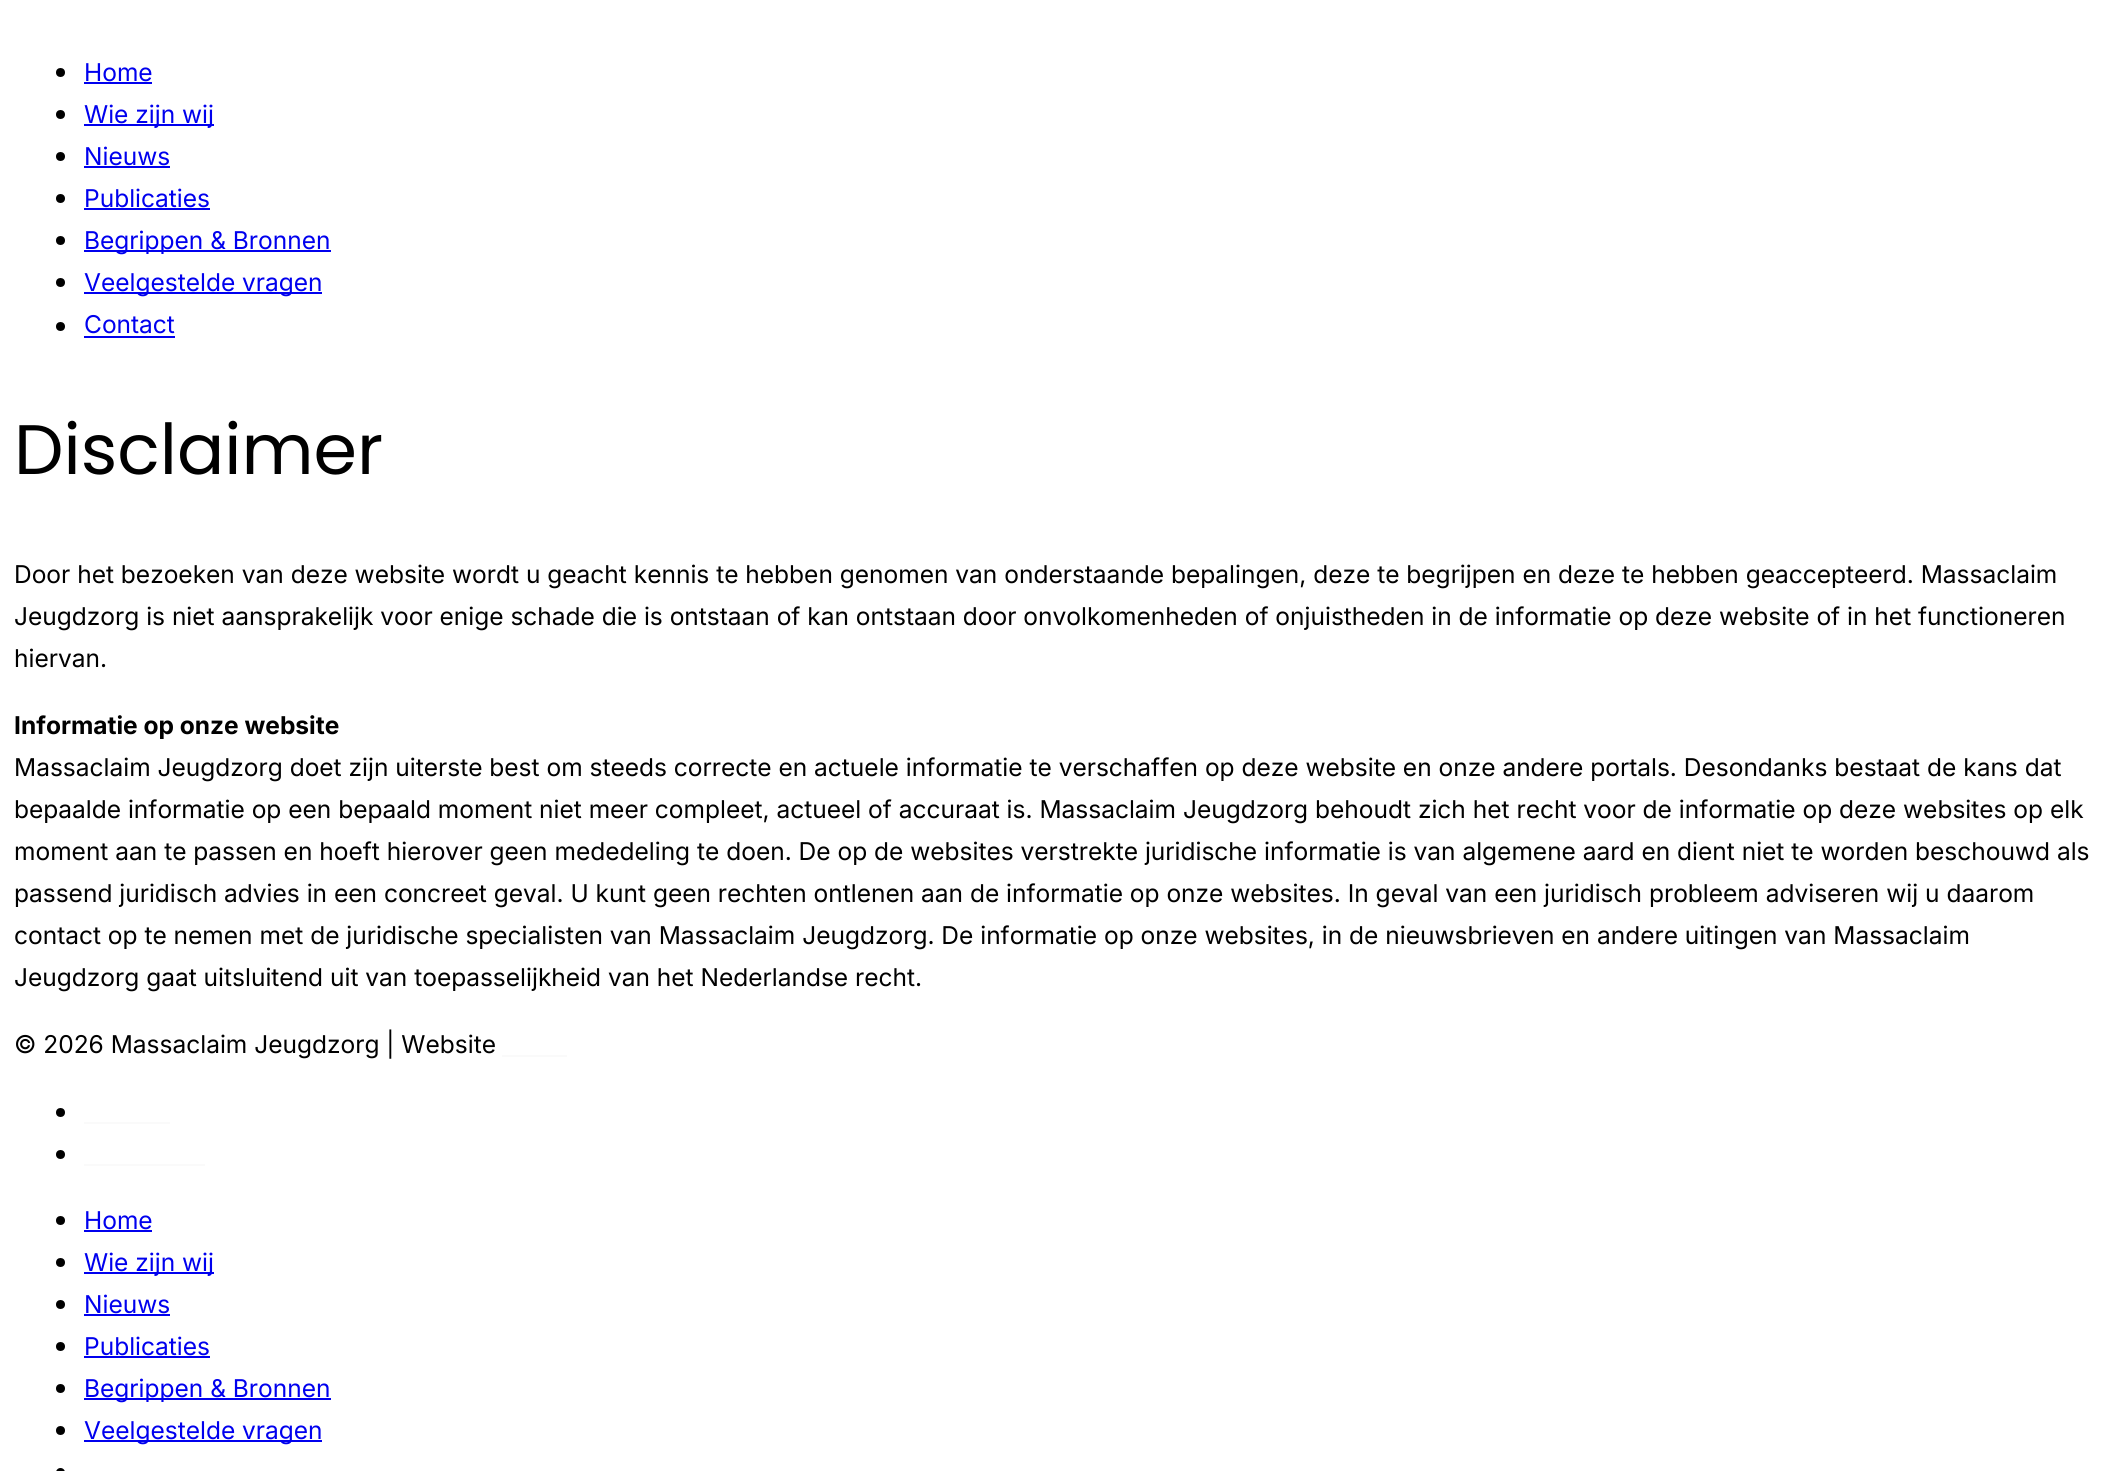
#include <cairo.h>
#include <math.h>
#include <stddef.h>

typedef struct { double x, y; const char *s; } line_t;

static void ink(cairo_t *ctx, unsigned color) {
    cairo_set_source_rgb(ctx, (color >> 16) / 255.0, (color >> 8 & 255) / 255.0, (color & 255) / 255.0);
}

static void round_path(cairo_t *ctx, double x, double y, double w, double h, double r) {
    cairo_new_sub_path(ctx);
    cairo_arc(ctx, x + w - r, y + h - r, r, 0, M_PI / 2);
    cairo_arc(ctx, x + r, y + h - r, r, M_PI / 2, M_PI);
    cairo_arc(ctx, x + r, y + r, r, M_PI, 1.5 * M_PI);
    cairo_arc(ctx, x + w - r, y + r, r, 1.5 * M_PI, 2 * M_PI);
    cairo_close_path(ctx);
}

int main(void) {
    cairo_surface_t *surface = cairo_image_surface_create(CAIRO_FORMAT_RGB24, 2105, 1471);
    cairo_t *ctx = cairo_create(surface);
    cairo_font_options_t *options = cairo_font_options_create();
    cairo_font_options_set_hint_metrics(options, CAIRO_HINT_METRICS_OFF);
    cairo_font_options_set_hint_style(options, CAIRO_HINT_STYLE_NONE);
    cairo_set_font_options(ctx, options);
    cairo_set_miter_limit(ctx, 4);
    ink(ctx, 0xFFFFFF);
    cairo_paint(ctx);
    ink(ctx, 0x000000);
    cairo_arc(ctx, 60.5, 72.5, 4.5, 0, 2 * M_PI);
    cairo_fill(ctx);
    cairo_select_font_face(ctx, "Inter", CAIRO_FONT_SLANT_NORMAL, CAIRO_FONT_WEIGHT_NORMAL);
    cairo_set_font_size(ctx, 24.5);
    ink(ctx, 0x0000EE);
    cairo_move_to(ctx, 84, 81);
    cairo_show_text(ctx, "Home");
    cairo_rectangle(ctx, 84, 82, 68, 2);
    cairo_fill(ctx);
    ink(ctx, 0x000000);
    cairo_arc(ctx, 60.5, 114.5, 4.5, 0, 2 * M_PI);
    cairo_fill(ctx);
    ink(ctx, 0x0000EE);
    cairo_rectangle(ctx, 84, 124, 130, 2);
    cairo_fill(ctx);
    cairo_move_to(ctx, 84, 123);
    cairo_show_text(ctx, "Wie zijn wij");
    ink(ctx, 0x000000);
    cairo_new_path(ctx);
    cairo_arc(ctx, 60.5, 156.5, 4.5, 0, 2 * M_PI);
    cairo_fill(ctx);
    ink(ctx, 0x0000EE);
    cairo_move_to(ctx, 84, 165);
    cairo_show_text(ctx, "Nieuws");
    cairo_rectangle(ctx, 84, 166, 86, 2);
    cairo_fill(ctx);
    ink(ctx, 0x000000);
    cairo_arc(ctx, 60.5, 198.5, 4.5, 0, 2 * M_PI);
    cairo_fill(ctx);
    ink(ctx, 0x0000EE);
    cairo_move_to(ctx, 84, 207);
    cairo_show_text(ctx, "Publicaties");
    cairo_rectangle(ctx, 84, 208, 126, 2);
    cairo_fill(ctx);
    ink(ctx, 0x000000);
    cairo_arc(ctx, 60.5, 240.5, 4.5, 0, 2 * M_PI);
    cairo_fill(ctx);
    ink(ctx, 0x0000EE);
    cairo_rectangle(ctx, 84, 250, 247, 2);
    cairo_fill(ctx);
    cairo_move_to(ctx, 84, 249);
    cairo_show_text(ctx, "Begrippen & Bronnen");
    ink(ctx, 0x000000);
    cairo_new_path(ctx);
    cairo_arc(ctx, 60.5, 282.5, 4.5, 0, 2 * M_PI);
    cairo_fill(ctx);
    ink(ctx, 0x0000EE);
    cairo_rectangle(ctx, 84, 292, 238, 2);
    cairo_fill(ctx);
    cairo_move_to(ctx, 84, 291);
    cairo_show_text(ctx, "Veelgestelde vragen");
    ink(ctx, 0x000000);
    cairo_new_path(ctx);
    cairo_arc(ctx, 60.5, 326.5, 4.5, 0, 2 * M_PI);
    cairo_fill(ctx);
    ink(ctx, 0x0000EE);
    cairo_move_to(ctx, 84, 333);
    cairo_show_text(ctx, "Contact");
    cairo_rectangle(ctx, 84, 336, 91, 2);
    cairo_fill(ctx);
    cairo_select_font_face(ctx, "Poppins", CAIRO_FONT_SLANT_NORMAL, CAIRO_FONT_WEIGHT_NORMAL);
    cairo_set_font_size(ctx, 70);
    ink(ctx, 0x000000);
    cairo_move_to(ctx, 14, 474);
    cairo_show_text(ctx, "Disclaimer");
    cairo_select_font_face(ctx, "Inter", CAIRO_FONT_SLANT_NORMAL, CAIRO_FONT_WEIGHT_NORMAL);
    cairo_set_font_size(ctx, 24.5);
    {
        static const line_t items[] = {
            {14, 583, "Door het bezoeken van deze website wordt u geacht kennis te hebben genomen van onderstaande bepalingen, deze te begrijpen en deze te hebben geaccepteerd. Massaclaim"},
            {14, 625, "Jeugdzorg is niet aansprakelijk voor enige schade die is ontstaan of kan ontstaan door onvolkomenheden of onjuistheden in de informatie op deze website of in het functioneren"},
            {14, 667, "hiervan."},
        };
        for (size_t i = 0; i < sizeof items / sizeof *items; i++) {
            cairo_move_to(ctx, items[i].x, items[i].y);
            cairo_show_text(ctx, items[i].s);
        }
    }
    cairo_select_font_face(ctx, "Inter", CAIRO_FONT_SLANT_NORMAL, CAIRO_FONT_WEIGHT_BOLD);
    cairo_move_to(ctx, 14, 734);
    cairo_show_text(ctx, "Informatie op onze website");
    cairo_select_font_face(ctx, "Inter", CAIRO_FONT_SLANT_NORMAL, CAIRO_FONT_WEIGHT_NORMAL);
    {
        static const line_t items[] = {
            {14, 776, "Massaclaim Jeugdzorg doet zijn uiterste best om steeds correcte en actuele informatie te verschaffen op deze website en onze andere portals. Desondanks bestaat de kans dat"},
            {14, 818, "bepaalde informatie op een bepaald moment niet meer compleet, actueel of accuraat is. Massaclaim Jeugdzorg behoudt zich het recht voor de informatie op deze websites op elk"},
            {14, 860, "moment aan te passen en hoeft hierover geen mededeling te doen. De op de websites verstrekte juridische informatie is van algemene aard en dient niet te worden beschouwd als"},
            {14, 902, "passend juridisch advies in een concreet geval. U kunt geen rechten ontlenen aan de informatie op onze websites. In geval van een juridisch probleem adviseren wij u daarom"},
            {14, 944, "contact op te nemen met de juridische specialisten van Massaclaim Jeugdzorg. De informatie op onze websites, in de nieuwsbrieven en andere uitingen van Massaclaim"},
            {14, 986, "Jeugdzorg gaat uitsluitend uit van toepasselijkheid van het Nederlandse recht."},
            {14, 1053, "© 2026 Massaclaim Jeugdzorg | Website"},
        };
        for (size_t i = 0; i < sizeof items / sizeof *items; i++) {
            cairo_move_to(ctx, items[i].x, items[i].y);
            cairo_show_text(ctx, items[i].s);
        }
    }
    ink(ctx, 0xFAFAFA);
    cairo_rectangle(ctx, 502, 1055, 65, 2);
    cairo_fill(ctx);
    ink(ctx, 0x000000);
    cairo_arc(ctx, 60.5, 1112.5, 4.5, 0, 2 * M_PI);
    cairo_fill(ctx);
    ink(ctx, 0xFAFAFA);
    cairo_rectangle(ctx, 84, 1122, 86, 2);
    cairo_fill(ctx);
    ink(ctx, 0x000000);
    cairo_arc(ctx, 60.5, 1154.5, 4.5, 0, 2 * M_PI);
    cairo_fill(ctx);
    ink(ctx, 0xFAFAFA);
    cairo_rectangle(ctx, 84, 1164, 121, 2);
    cairo_fill(ctx);
    ink(ctx, 0x000000);
    cairo_arc(ctx, 60.5, 1220.5, 4.5, 0, 2 * M_PI);
    cairo_fill(ctx);
    ink(ctx, 0x0000EE);
    cairo_move_to(ctx, 84, 1229);
    cairo_show_text(ctx, "Home");
    cairo_rectangle(ctx, 84, 1230, 68, 2);
    cairo_fill(ctx);
    ink(ctx, 0x000000);
    cairo_arc(ctx, 60.5, 1262.5, 4.5, 0, 2 * M_PI);
    cairo_fill(ctx);
    ink(ctx, 0x0000EE);
    cairo_rectangle(ctx, 84, 1272, 130, 2);
    cairo_fill(ctx);
    cairo_move_to(ctx, 84, 1271);
    cairo_show_text(ctx, "Wie zijn wij");
    ink(ctx, 0x000000);
    cairo_new_path(ctx);
    cairo_arc(ctx, 60.5, 1304.5, 4.5, 0, 2 * M_PI);
    cairo_fill(ctx);
    ink(ctx, 0x0000EE);
    cairo_move_to(ctx, 84, 1313);
    cairo_show_text(ctx, "Nieuws");
    cairo_rectangle(ctx, 84, 1314, 86, 2);
    cairo_fill(ctx);
    ink(ctx, 0x000000);
    cairo_arc(ctx, 60.5, 1346.5, 4.5, 0, 2 * M_PI);
    cairo_fill(ctx);
    ink(ctx, 0x0000EE);
    cairo_move_to(ctx, 84, 1355);
    cairo_show_text(ctx, "Publicaties");
    cairo_rectangle(ctx, 84, 1356, 126, 2);
    cairo_fill(ctx);
    ink(ctx, 0x000000);
    cairo_arc(ctx, 60.5, 1388.5, 4.5, 0, 2 * M_PI);
    cairo_fill(ctx);
    ink(ctx, 0x0000EE);
    cairo_rectangle(ctx, 84, 1398, 247, 2);
    cairo_fill(ctx);
    cairo_move_to(ctx, 84, 1397);
    cairo_show_text(ctx, "Begrippen & Bronnen");
    ink(ctx, 0x000000);
    cairo_new_path(ctx);
    cairo_arc(ctx, 60.5, 1430.5, 4.5, 0, 2 * M_PI);
    cairo_fill(ctx);
    ink(ctx, 0x0000EE);
    cairo_rectangle(ctx, 84, 1440, 238, 2);
    cairo_fill(ctx);
    cairo_move_to(ctx, 84, 1439);
    cairo_show_text(ctx, "Veelgestelde vragen");
    ink(ctx, 0x000000);
    round_path(ctx, 56, 1468, 9, 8, 4.5);
    cairo_fill(ctx);
    cairo_surface_write_to_png(surface, "image.png");
    cairo_font_options_destroy(options);
    cairo_destroy(ctx);
    cairo_surface_destroy(surface);
    return 0;
}
